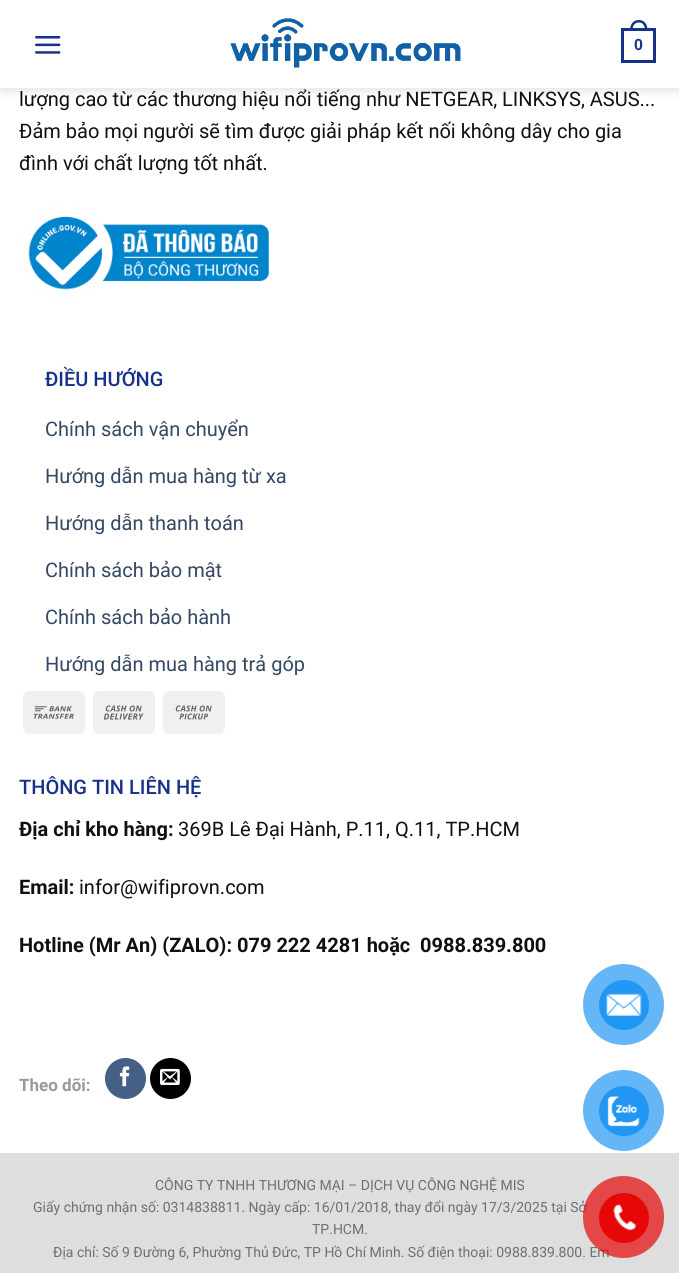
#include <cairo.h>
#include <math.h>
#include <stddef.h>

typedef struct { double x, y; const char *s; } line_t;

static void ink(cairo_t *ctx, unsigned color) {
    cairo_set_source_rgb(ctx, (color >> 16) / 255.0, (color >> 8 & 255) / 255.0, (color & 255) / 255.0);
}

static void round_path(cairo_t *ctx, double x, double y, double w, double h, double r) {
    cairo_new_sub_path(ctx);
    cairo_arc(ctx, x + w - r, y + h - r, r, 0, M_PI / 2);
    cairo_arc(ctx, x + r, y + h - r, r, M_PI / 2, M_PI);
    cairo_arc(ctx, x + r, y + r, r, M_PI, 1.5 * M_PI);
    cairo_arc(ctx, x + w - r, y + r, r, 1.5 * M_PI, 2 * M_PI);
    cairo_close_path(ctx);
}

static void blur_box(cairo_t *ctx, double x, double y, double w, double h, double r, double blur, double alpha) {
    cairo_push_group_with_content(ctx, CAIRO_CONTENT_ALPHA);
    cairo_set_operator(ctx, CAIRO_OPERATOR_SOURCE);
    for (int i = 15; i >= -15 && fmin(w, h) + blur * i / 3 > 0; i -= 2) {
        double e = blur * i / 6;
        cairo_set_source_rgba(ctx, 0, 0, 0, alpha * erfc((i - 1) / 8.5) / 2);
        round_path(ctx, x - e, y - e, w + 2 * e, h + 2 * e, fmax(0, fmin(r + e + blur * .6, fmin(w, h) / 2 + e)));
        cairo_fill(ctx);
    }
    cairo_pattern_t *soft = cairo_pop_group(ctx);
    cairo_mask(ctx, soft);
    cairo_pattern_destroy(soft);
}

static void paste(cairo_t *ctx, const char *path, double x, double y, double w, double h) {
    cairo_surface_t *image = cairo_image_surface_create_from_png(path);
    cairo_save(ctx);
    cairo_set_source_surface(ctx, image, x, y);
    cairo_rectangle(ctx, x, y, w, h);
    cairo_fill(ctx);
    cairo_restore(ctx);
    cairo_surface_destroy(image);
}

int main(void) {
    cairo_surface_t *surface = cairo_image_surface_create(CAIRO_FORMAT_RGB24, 679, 1273);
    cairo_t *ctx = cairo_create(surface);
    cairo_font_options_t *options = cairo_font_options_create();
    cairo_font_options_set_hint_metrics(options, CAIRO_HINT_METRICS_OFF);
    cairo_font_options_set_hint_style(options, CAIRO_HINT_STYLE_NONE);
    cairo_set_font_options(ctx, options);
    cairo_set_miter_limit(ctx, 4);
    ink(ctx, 0xFFFFFF);
    cairo_paint(ctx);
    ink(ctx, 0x000000);
    blur_box(ctx, 1, 1, 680, 88, 0, 6, 0.15);
    ink(ctx, 0xFFFFFF);
    cairo_rectangle(ctx, 0, 0, 679, 88);
    cairo_fill(ctx);
    paste(ctx, "media/1.png", 35, 36, 26, 18);
    paste(ctx, "media/2.png", 230, 17, 231, 51);
    cairo_rectangle(ctx, 622.5, 29.5, 32, 32);
    ink(ctx, 0x163189);
    cairo_set_line_width(ctx, 3);
    cairo_stroke(ctx);
    cairo_set_fill_rule(ctx, CAIRO_FILL_RULE_EVEN_ODD);
    cairo_new_path(ctx);
    cairo_move_to(ctx, 639, 20);
    cairo_curve_to(ctx, 644.5, 20, 647.5, 24.5, 647.5, 30);
    cairo_line_to(ctx, 630, 30);
    cairo_curve_to(ctx, 630, 24.5, 633, 20, 639, 20);
    cairo_close_path(ctx);
    cairo_move_to(ctx, 639, 22.5);
    cairo_curve_to(ctx, 643, 22.5, 645, 26, 645, 30);
    cairo_line_to(ctx, 632.5, 30);
    cairo_curve_to(ctx, 632.5, 26, 634.5, 22.5, 639, 22.5);
    cairo_close_path(ctx);
    cairo_fill(ctx);
    cairo_select_font_face(ctx, "Liberation Sans", CAIRO_FONT_SLANT_NORMAL, CAIRO_FONT_WEIGHT_BOLD);
    cairo_set_font_size(ctx, 16);
    cairo_move_to(ctx, 634, 50);
    cairo_show_text(ctx, "0");
    cairo_select_font_face(ctx, "Roboto", CAIRO_FONT_SLANT_NORMAL, CAIRO_FONT_WEIGHT_NORMAL);
    cairo_set_font_size(ctx, 20);
    ink(ctx, 0x101010);
    {
        static const line_t items[] = {
            {19, 106, "lượng cao từ các thương hiệu nổi tiếng như NETGEAR, LINKSYS, ASUS..."},
            {19, 138, "Đảm bảo mọi người sẽ tìm được giải pháp kết nối không dây cho gia"},
            {19, 170, "đình với chất lượng tốt nhất."},
        };
        for (size_t i = 0; i < sizeof items / sizeof *items; i++) {
            cairo_move_to(ctx, items[i].x, items[i].y);
            cairo_show_text(ctx, items[i].s);
        }
    }
    paste(ctx, "media/3.png", 19, 206, 250, 93);
    cairo_select_font_face(ctx, "Roboto Medium", CAIRO_FONT_SLANT_NORMAL, CAIRO_FONT_WEIGHT_NORMAL);
    ink(ctx, 0x163189);
    cairo_move_to(ctx, 45, 386);
    cairo_show_text(ctx, "ĐIỀU HƯỚNG");
    cairo_select_font_face(ctx, "Roboto", CAIRO_FONT_SLANT_NORMAL, CAIRO_FONT_WEIGHT_NORMAL);
    ink(ctx, 0x334862);
    {
        static const line_t items[] = {
            {45, 436, "Chính sách vận chuyển"},
            {45, 483, "Hướng dẫn mua hàng từ xa"},
            {45, 530, "Hướng dẫn thanh toán"},
            {45, 577, "Chính sách bảo mật"},
            {45, 624, "Chính sách bảo hành"},
            {45, 671, "Hướng dẫn mua hàng trả góp"},
        };
        for (size_t i = 0; i < sizeof items / sizeof *items; i++) {
            cairo_move_to(ctx, items[i].x, items[i].y);
            cairo_show_text(ctx, items[i].s);
        }
    }
    ink(ctx, 0xF0F0F0);
    round_path(ctx, 23, 691, 62, 43, 6);
    cairo_fill(ctx);
    paste(ctx, "media/4.png", 33, 706, 41, 13);
    round_path(ctx, 93, 691, 62, 43, 6);
    cairo_fill(ctx);
    paste(ctx, "media/5.png", 103, 705, 41, 15);
    round_path(ctx, 163, 691, 62, 43, 6);
    cairo_fill(ctx);
    paste(ctx, "media/6.png", 175, 705, 37, 15);
    cairo_select_font_face(ctx, "Roboto Medium", CAIRO_FONT_SLANT_NORMAL, CAIRO_FONT_WEIGHT_NORMAL);
    ink(ctx, 0x163189);
    cairo_move_to(ctx, 19, 794);
    cairo_show_text(ctx, "THÔNG TIN LIÊN HỆ");
    cairo_select_font_face(ctx, "Roboto", CAIRO_FONT_SLANT_NORMAL, CAIRO_FONT_WEIGHT_BOLD);
    ink(ctx, 0x101010);
    cairo_move_to(ctx, 19, 836);
    cairo_show_text(ctx, "Địa chỉ kho hàng:");
    cairo_select_font_face(ctx, "Roboto", CAIRO_FONT_SLANT_NORMAL, CAIRO_FONT_WEIGHT_NORMAL);
    cairo_move_to(ctx, 178, 836);
    cairo_show_text(ctx, "369B Lê Đại Hành, P.11, Q.11, TP.HCM");
    cairo_select_font_face(ctx, "Roboto", CAIRO_FONT_SLANT_NORMAL, CAIRO_FONT_WEIGHT_BOLD);
    cairo_move_to(ctx, 19, 894);
    cairo_show_text(ctx, "Email:");
    cairo_select_font_face(ctx, "Roboto", CAIRO_FONT_SLANT_NORMAL, CAIRO_FONT_WEIGHT_NORMAL);
    cairo_move_to(ctx, 79, 894);
    cairo_show_text(ctx, "infor@wifiprovn.com");
    cairo_select_font_face(ctx, "Roboto", CAIRO_FONT_SLANT_NORMAL, CAIRO_FONT_WEIGHT_BOLD);
    cairo_move_to(ctx, 19, 952);
    cairo_show_text(ctx, "Hotline (Mr An) (ZALO): 079 222 4281 hoặc");
    cairo_move_to(ctx, 420, 952);
    cairo_show_text(ctx, "0988.839.800");
    cairo_set_font_size(ctx, 17);
    ink(ctx, 0x999999);
    cairo_move_to(ctx, 19, 1091);
    cairo_show_text(ctx, "Theo dõi:");
    ink(ctx, 0x446084);
    cairo_new_path(ctx);
    cairo_arc(ctx, 125.5, 1078.5, 19, 0, 2 * M_PI);
    cairo_fill_preserve(ctx);
    cairo_stroke(ctx);
    paste(ctx, "media/7.png", 119, 1066, 11, 21);
    ink(ctx, 0x000000);
    cairo_arc(ctx, 170.5, 1078.5, 19, 0, 2 * M_PI);
    cairo_fill_preserve(ctx);
    cairo_stroke(ctx);
    paste(ctx, "media/8.png", 160, 1068, 20, 17);
    ink(ctx, 0xDEDEDE);
    cairo_rectangle(ctx, 0, 1153, 679, 120);
    cairo_fill(ctx);
    cairo_select_font_face(ctx, "Roboto", CAIRO_FONT_SLANT_NORMAL, CAIRO_FONT_WEIGHT_NORMAL);
    cairo_set_font_size(ctx, 14);
    ink(ctx, 0x6F6F6F);
    {
        static const line_t items[] = {
            {155, 1190, "CÔNG TY TNHH THƯƠNG MẠI – DỊCH VỤ CÔNG NGHỆ MIS"},
            {33, 1212, "Giấy chứng nhận số: 0314838811. Ngày cấp: 16/01/2018, thay đổi ngày 17/3/2025 tại Sở"},
            {312, 1234, "TP.HCM."},
            {53, 1257, "Địa chỉ: Số 9 Đường 6, Phường Thủ Đức, TP Hồ Chí Minh. Số điện thoại: 0988.839.800. Em"},
        };
        for (size_t i = 0; i < sizeof items / sizeof *items; i++) {
            cairo_move_to(ctx, items[i].x, items[i].y);
            cairo_show_text(ctx, items[i].s);
        }
    }
    ink(ctx, 0x64B6F7);
    cairo_new_path(ctx);
    cairo_arc(ctx, 623.5, 1004.5, 40.5, 0, 2 * M_PI);
    cairo_fill(ctx);
    ink(ctx, 0x2196F3);
    cairo_arc(ctx, 624, 1005, 25, 0, 2 * M_PI);
    cairo_fill(ctx);
    paste(ctx, "media/9.png", 606, 993, 36, 23);
    ink(ctx, 0x64B6F7);
    cairo_arc(ctx, 623.5, 1110.5, 40.5, 0, 2 * M_PI);
    cairo_fill(ctx);
    ink(ctx, 0x2196F3);
    cairo_arc(ctx, 624, 1111, 25, 0, 2 * M_PI);
    cairo_fill(ctx);
    paste(ctx, "media/10.png", 607, 1096, 33, 31);
    cairo_set_source_rgba(ctx, 0.902, 0.031, 0.031, 0.7);
    round_path(ctx, 583, 1176, 81, 82, 40.5);
    cairo_fill(ctx);
    ink(ctx, 0xE60808);
    cairo_arc(ctx, 624, 1218, 25, 0, 2 * M_PI);
    cairo_fill(ctx);
    paste(ctx, "media/11.png", 613, 1204, 23, 27);
    cairo_surface_write_to_png(surface, "image.png");
    cairo_font_options_destroy(options);
    cairo_destroy(ctx);
    cairo_surface_destroy(surface);
    return 0;
}
